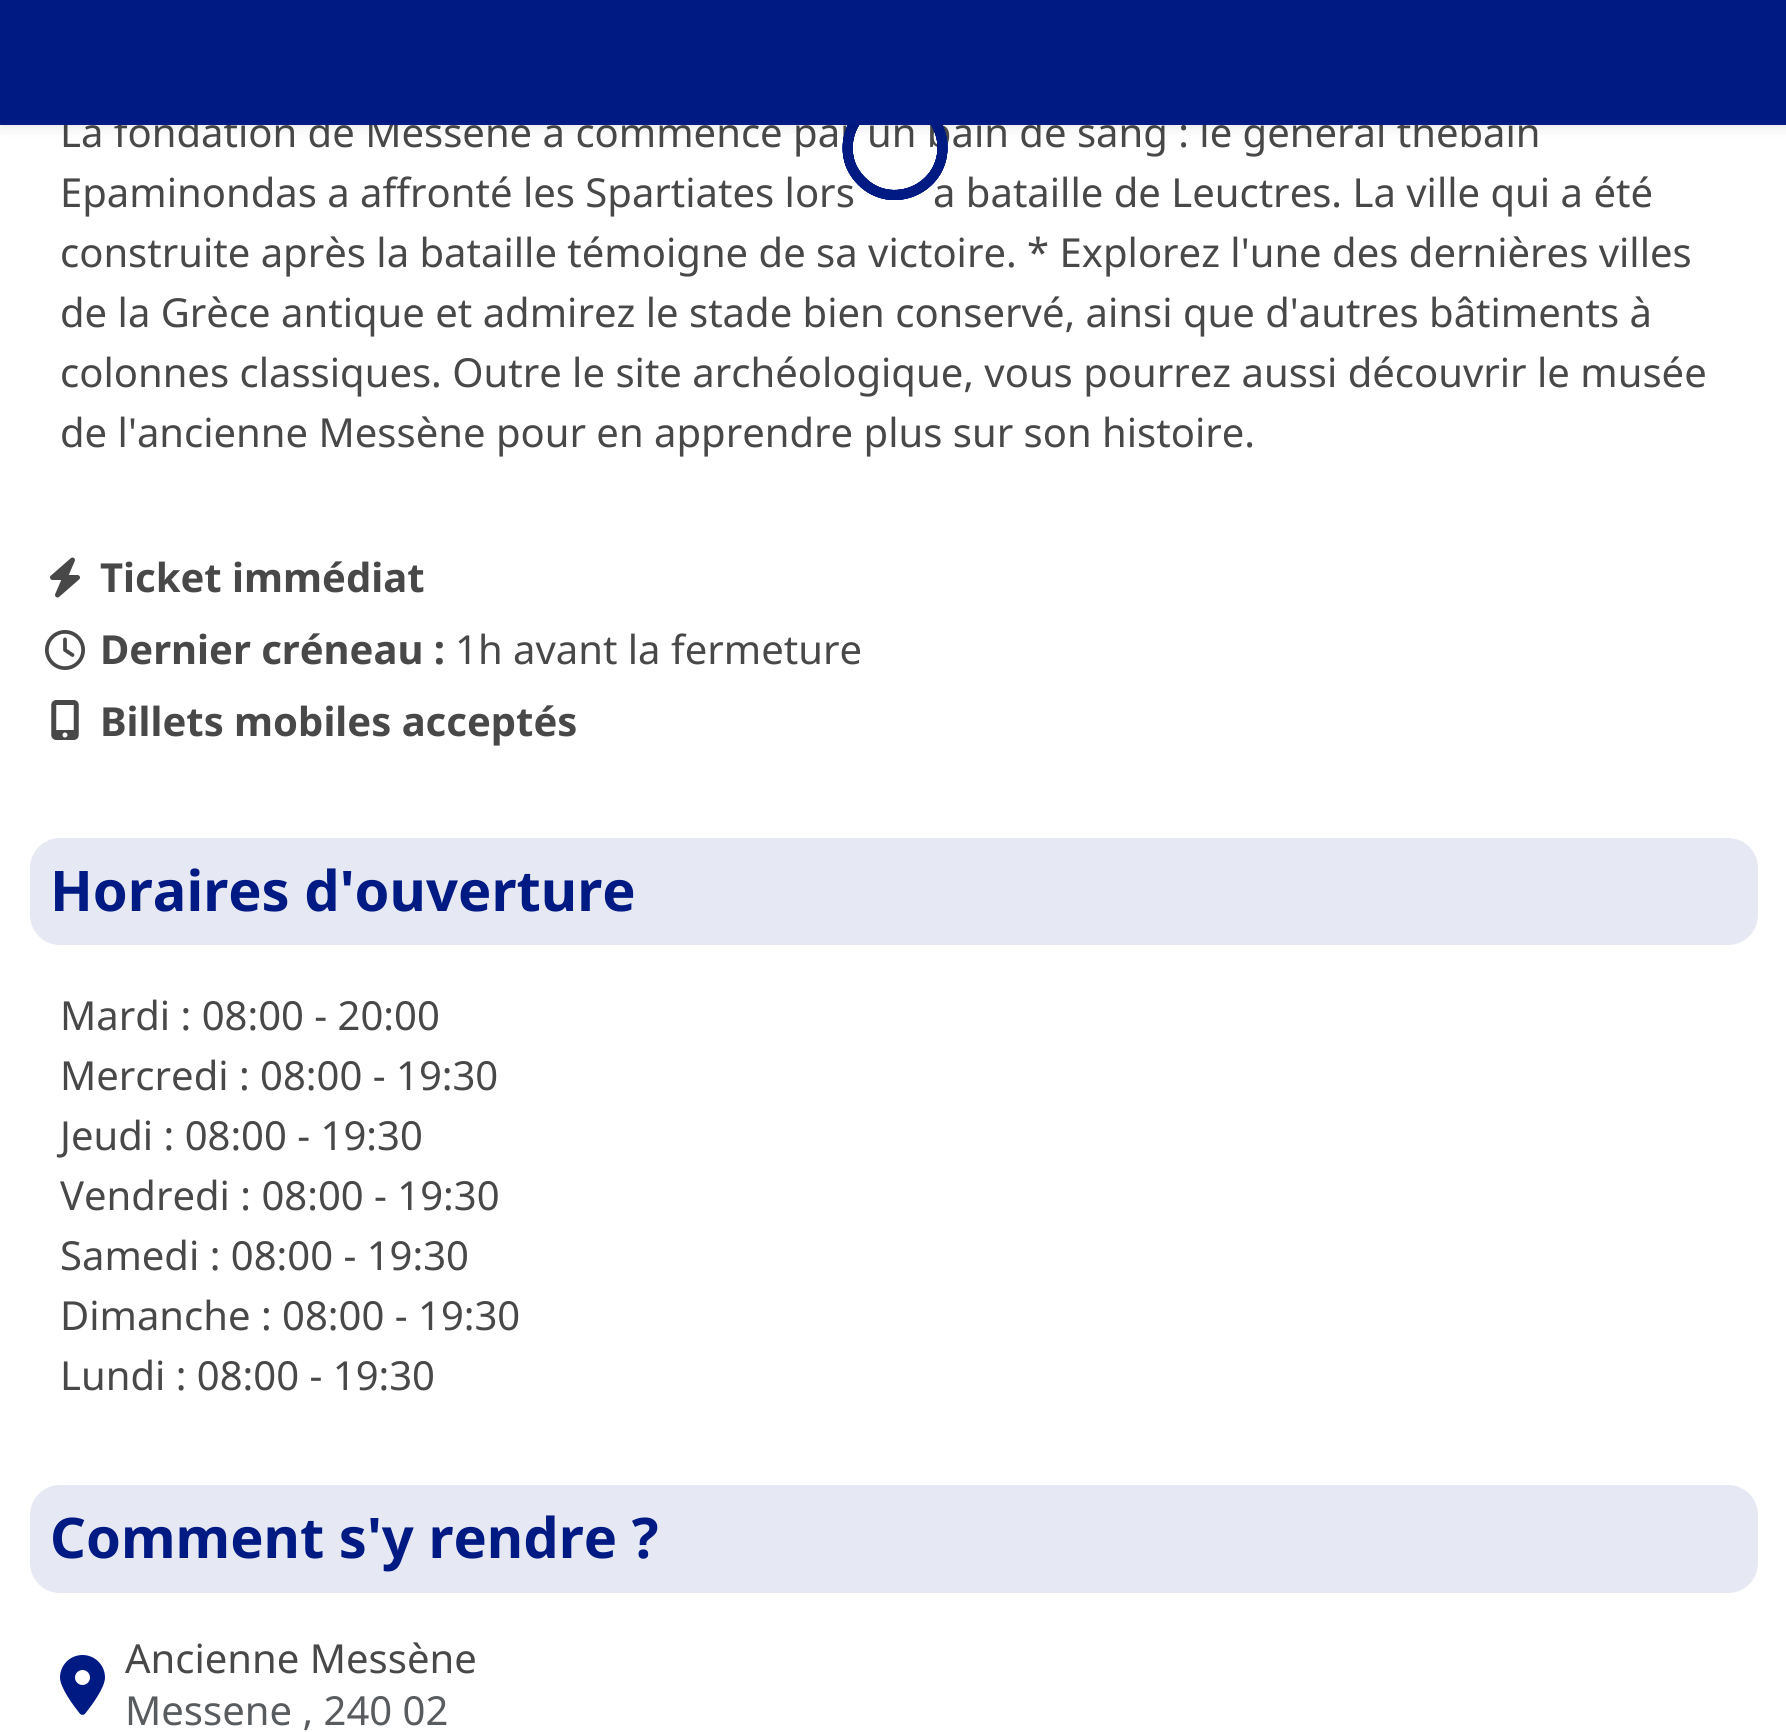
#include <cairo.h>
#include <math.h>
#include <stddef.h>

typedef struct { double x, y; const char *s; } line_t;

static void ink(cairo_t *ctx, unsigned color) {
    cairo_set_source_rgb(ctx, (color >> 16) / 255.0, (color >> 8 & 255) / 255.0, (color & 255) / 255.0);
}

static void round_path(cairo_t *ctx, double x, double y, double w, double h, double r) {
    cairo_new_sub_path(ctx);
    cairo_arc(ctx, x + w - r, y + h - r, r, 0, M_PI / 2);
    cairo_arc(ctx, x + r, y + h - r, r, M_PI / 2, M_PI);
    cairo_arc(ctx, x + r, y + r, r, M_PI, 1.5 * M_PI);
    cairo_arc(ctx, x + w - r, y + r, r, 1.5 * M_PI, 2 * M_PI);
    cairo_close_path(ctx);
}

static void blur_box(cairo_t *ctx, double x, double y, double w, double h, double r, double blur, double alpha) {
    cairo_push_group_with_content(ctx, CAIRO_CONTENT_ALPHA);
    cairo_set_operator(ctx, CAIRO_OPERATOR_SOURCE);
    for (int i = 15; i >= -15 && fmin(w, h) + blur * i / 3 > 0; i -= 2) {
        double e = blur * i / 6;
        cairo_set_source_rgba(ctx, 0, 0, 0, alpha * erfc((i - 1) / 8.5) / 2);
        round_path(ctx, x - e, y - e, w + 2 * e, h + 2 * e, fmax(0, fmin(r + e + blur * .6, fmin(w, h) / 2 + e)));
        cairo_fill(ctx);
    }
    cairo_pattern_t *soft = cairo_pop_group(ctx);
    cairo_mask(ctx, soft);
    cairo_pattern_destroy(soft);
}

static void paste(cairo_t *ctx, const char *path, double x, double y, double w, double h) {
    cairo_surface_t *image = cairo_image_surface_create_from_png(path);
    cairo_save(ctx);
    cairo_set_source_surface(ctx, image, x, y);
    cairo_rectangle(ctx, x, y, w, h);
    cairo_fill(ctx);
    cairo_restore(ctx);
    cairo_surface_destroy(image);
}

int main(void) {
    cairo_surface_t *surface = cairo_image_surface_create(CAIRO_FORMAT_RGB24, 1786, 1732);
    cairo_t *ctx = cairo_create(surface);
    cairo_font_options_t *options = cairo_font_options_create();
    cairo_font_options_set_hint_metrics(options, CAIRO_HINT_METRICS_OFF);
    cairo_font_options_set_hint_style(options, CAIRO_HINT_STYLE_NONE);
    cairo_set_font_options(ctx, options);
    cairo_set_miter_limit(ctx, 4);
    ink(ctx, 0xFFFFFF);
    cairo_paint(ctx);
    cairo_select_font_face(ctx, "Noto Sans", CAIRO_FONT_SLANT_NORMAL, CAIRO_FONT_WEIGHT_NORMAL);
    cairo_set_font_size(ctx, 40);
    ink(ctx, 0x484848);
    {
        static const line_t items[] = {
            {60, 147, "La fondation de Messène a commencé par un bain de sang : le général thébain"},
            {60, 207, "Epaminondas a affronté les Spartiates lors"},
            {933, 207, "a bataille de Leuctres. La ville qui a été"},
        };
        for (size_t i = 0; i < sizeof items / sizeof *items; i++) {
            cairo_move_to(ctx, items[i].x, items[i].y);
            cairo_show_text(ctx, items[i].s);
        }
    }
    cairo_new_path(ctx);
    cairo_move_to(ctx, 928.5, 114);
    cairo_curve_to(ctx, 937.5, 123, 942.5, 135, 942.5, 147.5);
    cairo_curve_to(ctx, 942.5, 189.5, 891, 211, 861.5, 181);
    cairo_curve_to(ctx, 855, 174.5, 850, 166, 848.5, 157);
    cairo_curve_to(ctx, 845.5, 141.5, 850.5, 125, 861.5, 114);
    ink(ctx, 0x001A84);
    cairo_set_line_width(ctx, 10);
    cairo_stroke(ctx);
    cairo_new_path(ctx);
    cairo_move_to(ctx, 928.5, 114);
    cairo_curve_to(ctx, 937.5, 123, 942.5, 135, 942.5, 147.5);
    cairo_curve_to(ctx, 942.5, 189.5, 891, 211, 861.5, 181);
    cairo_curve_to(ctx, 855, 174.5, 850, 166, 848.5, 157);
    cairo_curve_to(ctx, 845.5, 141.5, 850.5, 125, 861.5, 114);
    cairo_stroke(ctx);
    cairo_new_path(ctx);
    cairo_move_to(ctx, 928.5, 114);
    cairo_curve_to(ctx, 937.5, 123, 942.5, 135, 942.5, 147.5);
    cairo_curve_to(ctx, 942.5, 189.5, 891, 211, 861.5, 181);
    cairo_curve_to(ctx, 855, 174.5, 850, 166, 848.5, 157);
    cairo_curve_to(ctx, 845.5, 141.5, 850.5, 125, 861.5, 114);
    cairo_stroke(ctx);
    cairo_new_path(ctx);
    cairo_move_to(ctx, 928.5, 114);
    cairo_curve_to(ctx, 937.5, 123, 942.5, 135, 942.5, 147.5);
    cairo_curve_to(ctx, 942.5, 189.5, 891, 211, 861.5, 181);
    cairo_curve_to(ctx, 855, 174.5, 850, 166, 848.5, 157);
    cairo_curve_to(ctx, 845.5, 141.5, 850.5, 125, 861.5, 114);
    cairo_stroke(ctx);
    cairo_new_path(ctx);
    cairo_move_to(ctx, 928.5, 114);
    cairo_curve_to(ctx, 937.5, 123, 942.5, 135, 942.5, 147.5);
    cairo_curve_to(ctx, 942.5, 189.5, 891, 211, 861.5, 181);
    cairo_curve_to(ctx, 855, 174.5, 850, 166, 848.5, 157);
    cairo_curve_to(ctx, 845.5, 141.5, 850.5, 125, 861.5, 114);
    cairo_stroke(ctx);
    ink(ctx, 0x000000);
    blur_box(ctx, 0, 5, 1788, 125, 0, 5, 0.07);
    ink(ctx, 0x001A84);
    cairo_rectangle(ctx, 0, 0, 1786, 125);
    cairo_fill(ctx);
    ink(ctx, 0x484848);
    {
        static const line_t items[] = {
            {60, 267, "construite après la bataille témoigne de sa victoire. * Explorez l'une des dernières villes"},
            {60, 327, "de la Grèce antique et admirez le stade bien conservé, ainsi que d'autres bâtiments à"},
            {60, 387, "colonnes classiques. Outre le site archéologique, vous pourrez aussi découvrir le musée"},
            {60, 447, "de l'ancienne Messène pour en apprendre plus sur son histoire."},
        };
        for (size_t i = 0; i < sizeof items / sizeof *items; i++) {
            cairo_move_to(ctx, items[i].x, items[i].y);
            cairo_show_text(ctx, items[i].s);
        }
    }
    paste(ctx, "media/1.png", 50, 557, 30, 41);
    cairo_select_font_face(ctx, "Noto Sans", CAIRO_FONT_SLANT_NORMAL, CAIRO_FONT_WEIGHT_BOLD);
    cairo_move_to(ctx, 100, 592);
    cairo_show_text(ctx, "Ticket immédiat");
    paste(ctx, "media/2.png", 45, 630, 40, 40);
    cairo_move_to(ctx, 100, 664);
    cairo_show_text(ctx, "Dernier créneau :");
    cairo_select_font_face(ctx, "Noto Sans", CAIRO_FONT_SLANT_NORMAL, CAIRO_FONT_WEIGHT_NORMAL);
    cairo_move_to(ctx, 455, 664);
    cairo_show_text(ctx, "1h avant la fermeture");
    paste(ctx, "media/3.png", 51, 700, 28, 40);
    cairo_select_font_face(ctx, "Noto Sans", CAIRO_FONT_SLANT_NORMAL, CAIRO_FONT_WEIGHT_BOLD);
    cairo_move_to(ctx, 100, 736);
    cairo_show_text(ctx, "Billets mobiles acceptés");
    ink(ctx, 0xE6E9F3);
    round_path(ctx, 30, 838, 1728, 107, 30);
    cairo_fill(ctx);
    cairo_set_font_size(ctx, 56);
    ink(ctx, 0x001A84);
    cairo_move_to(ctx, 50, 911);
    cairo_show_text(ctx, "Horaires d'ouverture");
    cairo_select_font_face(ctx, "Noto Sans", CAIRO_FONT_SLANT_NORMAL, CAIRO_FONT_WEIGHT_NORMAL);
    cairo_set_font_size(ctx, 40);
    ink(ctx, 0x484848);
    {
        static const line_t items[] = {
            {60, 1030, "Mardi : 08:00 - 20:00"},
            {60, 1090, "Mercredi : 08:00 - 19:30"},
            {60, 1150, "Jeudi : 08:00 - 19:30"},
            {60, 1210, "Vendredi : 08:00 - 19:30"},
            {60, 1270, "Samedi : 08:00 - 19:30"},
            {60, 1330, "Dimanche : 08:00 - 19:30"},
            {60, 1390, "Lundi : 08:00 - 19:30"},
        };
        for (size_t i = 0; i < sizeof items / sizeof *items; i++) {
            cairo_move_to(ctx, items[i].x, items[i].y);
            cairo_show_text(ctx, items[i].s);
        }
    }
    ink(ctx, 0xE6E9F3);
    round_path(ctx, 30, 1485, 1728, 108, 30);
    cairo_fill(ctx);
    cairo_select_font_face(ctx, "Noto Sans", CAIRO_FONT_SLANT_NORMAL, CAIRO_FONT_WEIGHT_BOLD);
    cairo_set_font_size(ctx, 56);
    ink(ctx, 0x001A84);
    cairo_move_to(ctx, 50, 1558);
    cairo_show_text(ctx, "Comment s'y rendre ?");
    paste(ctx, "media/4.png", 60, 1655, 45, 60);
    cairo_select_font_face(ctx, "Noto Sans", CAIRO_FONT_SLANT_NORMAL, CAIRO_FONT_WEIGHT_NORMAL);
    cairo_set_font_size(ctx, 40);
    ink(ctx, 0x484848);
    cairo_move_to(ctx, 125, 1673);
    cairo_show_text(ctx, "Ancienne Messène");
    ink(ctx, 0x595C5F);
    cairo_move_to(ctx, 125, 1725);
    cairo_show_text(ctx, "Messene , 240 02");
    cairo_surface_write_to_png(surface, "image.png");
    cairo_font_options_destroy(options);
    cairo_destroy(ctx);
    cairo_surface_destroy(surface);
    return 0;
}
